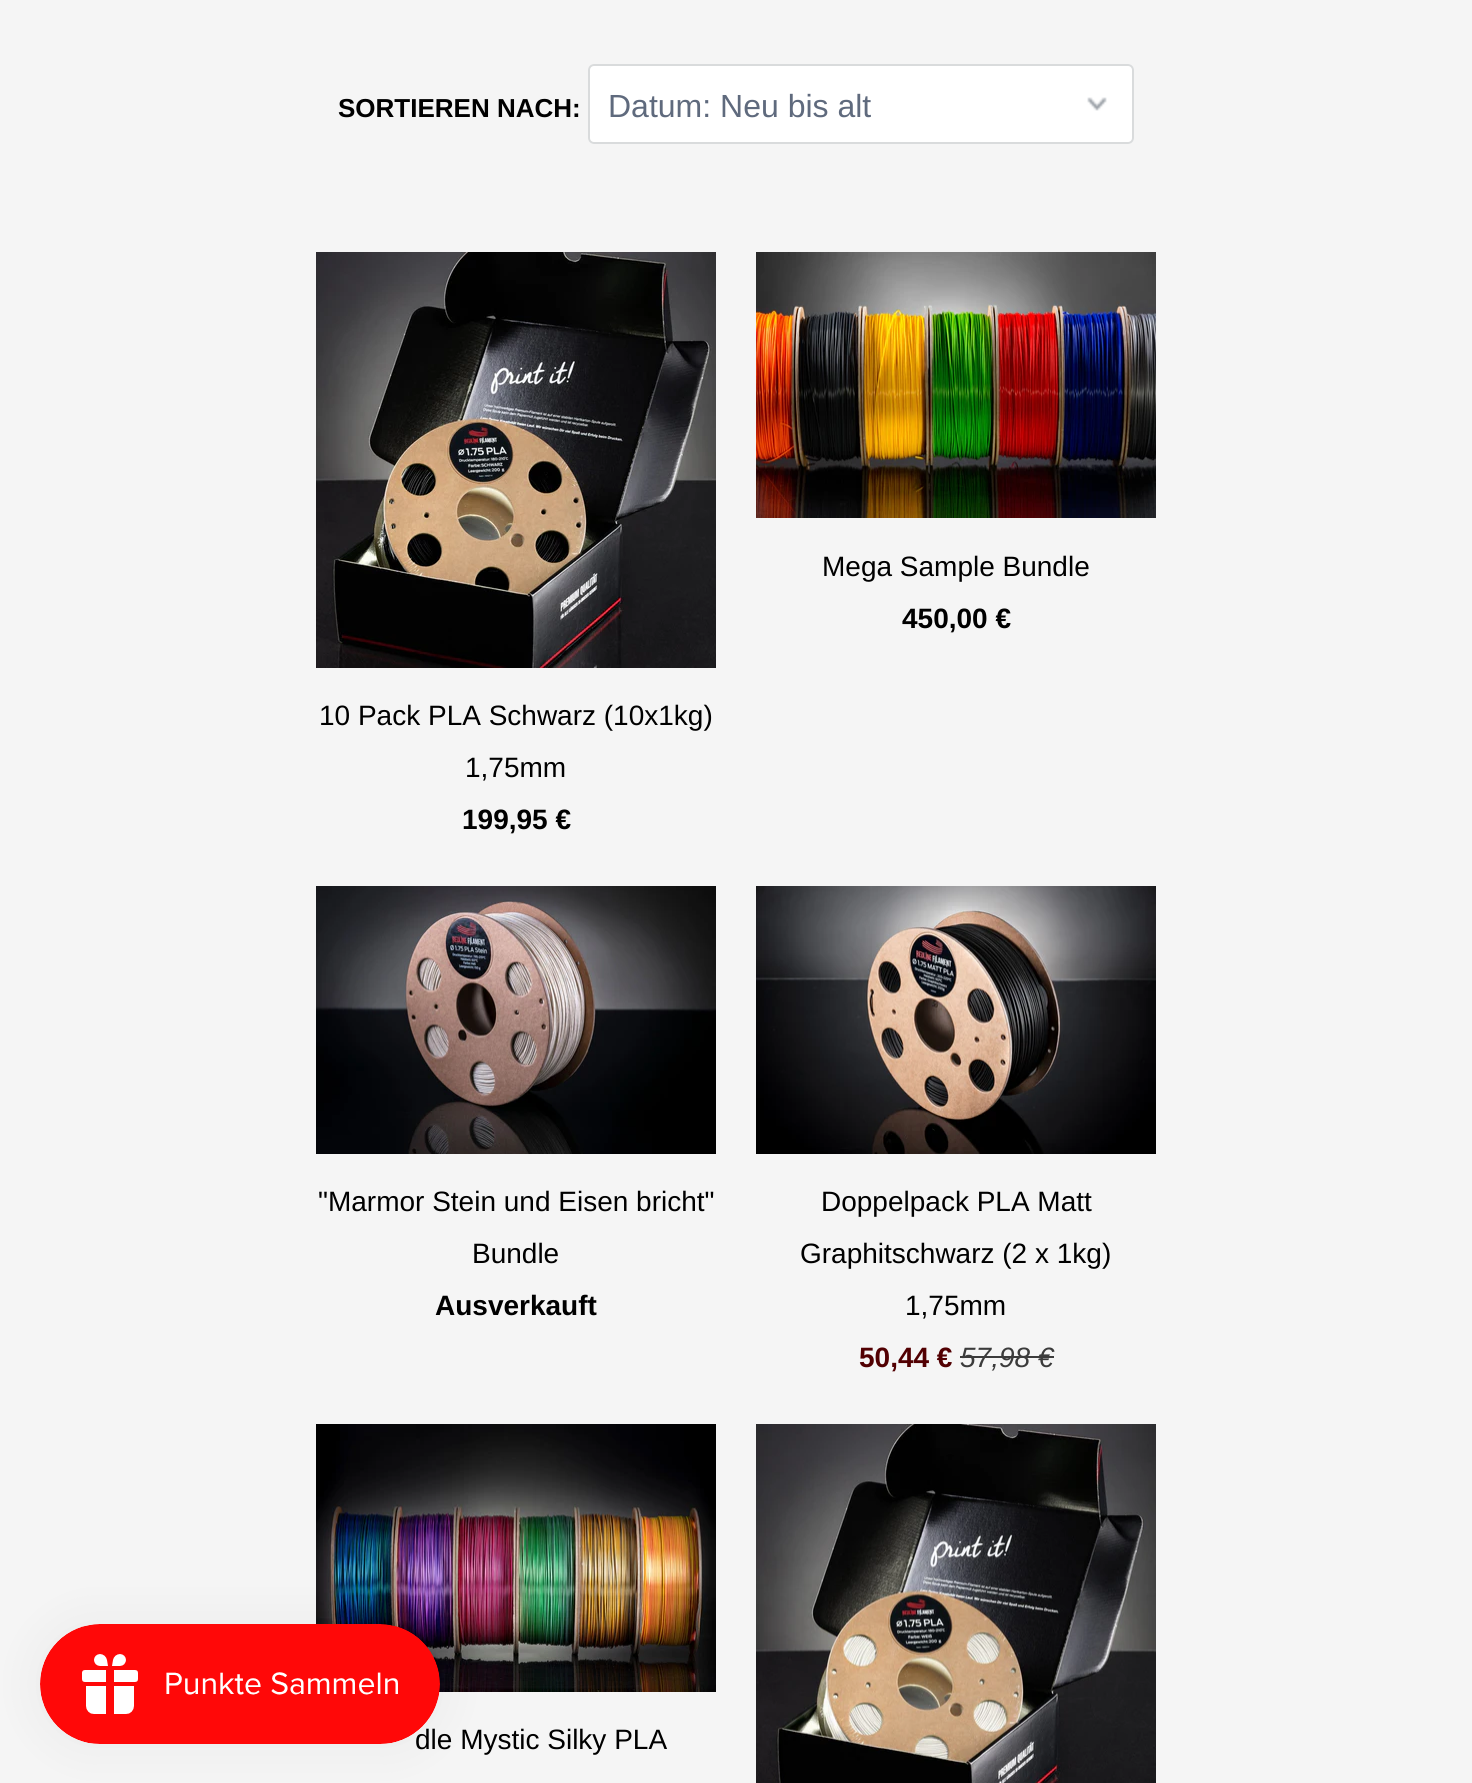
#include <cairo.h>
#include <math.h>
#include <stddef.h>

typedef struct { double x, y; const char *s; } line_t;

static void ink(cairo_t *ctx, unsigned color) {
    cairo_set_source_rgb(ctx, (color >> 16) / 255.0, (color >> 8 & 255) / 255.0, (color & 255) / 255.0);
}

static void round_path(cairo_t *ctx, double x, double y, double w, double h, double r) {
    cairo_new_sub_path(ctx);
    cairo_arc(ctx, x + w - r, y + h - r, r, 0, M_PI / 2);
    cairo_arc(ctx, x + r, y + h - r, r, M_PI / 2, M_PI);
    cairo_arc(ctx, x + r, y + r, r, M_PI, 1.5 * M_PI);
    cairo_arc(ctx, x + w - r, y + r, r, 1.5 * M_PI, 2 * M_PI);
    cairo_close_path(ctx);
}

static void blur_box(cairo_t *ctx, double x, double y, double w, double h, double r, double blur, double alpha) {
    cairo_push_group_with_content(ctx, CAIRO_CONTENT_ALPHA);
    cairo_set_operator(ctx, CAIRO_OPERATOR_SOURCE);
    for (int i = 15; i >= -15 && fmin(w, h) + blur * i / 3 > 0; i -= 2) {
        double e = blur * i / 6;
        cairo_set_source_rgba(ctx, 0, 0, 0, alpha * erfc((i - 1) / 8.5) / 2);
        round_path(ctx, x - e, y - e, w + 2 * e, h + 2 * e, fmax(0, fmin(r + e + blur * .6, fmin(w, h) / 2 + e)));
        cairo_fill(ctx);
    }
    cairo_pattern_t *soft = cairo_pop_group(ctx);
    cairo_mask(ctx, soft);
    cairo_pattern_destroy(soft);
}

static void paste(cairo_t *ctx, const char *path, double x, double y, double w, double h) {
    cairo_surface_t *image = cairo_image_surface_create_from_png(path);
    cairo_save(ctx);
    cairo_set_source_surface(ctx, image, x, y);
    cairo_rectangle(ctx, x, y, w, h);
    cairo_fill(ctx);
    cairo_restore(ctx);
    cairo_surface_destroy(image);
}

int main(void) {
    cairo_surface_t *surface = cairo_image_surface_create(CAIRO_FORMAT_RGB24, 1472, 1783);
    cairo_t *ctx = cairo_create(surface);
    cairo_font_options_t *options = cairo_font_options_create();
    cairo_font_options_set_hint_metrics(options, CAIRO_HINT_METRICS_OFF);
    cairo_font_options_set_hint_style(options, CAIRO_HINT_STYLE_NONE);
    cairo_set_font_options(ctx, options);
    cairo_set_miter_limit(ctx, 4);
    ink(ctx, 0xF5F5F5);
    cairo_paint(ctx);
    paste(ctx, "media/7.png", 316, 1424, 400, 268);
    ink(ctx, 0x000000);
    blur_box(ctx, 40, 1624, 400, 120, 60, 25, 0.05);
    cairo_select_font_face(ctx, "Liberation Sans", CAIRO_FONT_SLANT_NORMAL, CAIRO_FONT_WEIGHT_NORMAL);
    cairo_set_font_size(ctx, 28);
    ink(ctx, 0x000000);
    cairo_move_to(ctx, 415, 1749);
    cairo_show_text(ctx, "dle Mystic Silky PLA");
    paste(ctx, "media/1.png", 40, 1624, 400, 120);
    cairo_select_font_face(ctx, "Liberation Sans", CAIRO_FONT_SLANT_NORMAL, CAIRO_FONT_WEIGHT_BOLD);
    cairo_set_font_size(ctx, 26);
    cairo_move_to(ctx, 338, 117);
    cairo_show_text(ctx, "SORTIEREN NACH:");
    ink(ctx, 0xFFFFFF);
    round_path(ctx, 588, 64, 546, 80, 6);
    cairo_fill(ctx);
    paste(ctx, "media/2.png", 1087, 97, 20, 14);
    round_path(ctx, 589, 65, 544, 78, 5);
    ink(ctx, 0xD9DBDC);
    cairo_stroke(ctx);
    cairo_select_font_face(ctx, "Liberation Sans", CAIRO_FONT_SLANT_NORMAL, CAIRO_FONT_WEIGHT_NORMAL);
    cairo_set_font_size(ctx, 32);
    ink(ctx, 0x5F6A7D);
    cairo_move_to(ctx, 608, 117);
    cairo_show_text(ctx, "Datum: Neu bis alt");
    paste(ctx, "media/3.png", 756, 252, 400, 266);
    cairo_set_font_size(ctx, 28);
    ink(ctx, 0x000000);
    cairo_move_to(ctx, 822, 576);
    cairo_show_text(ctx, "Mega Sample Bundle");
    cairo_select_font_face(ctx, "Liberation Sans", CAIRO_FONT_SLANT_NORMAL, CAIRO_FONT_WEIGHT_BOLD);
    cairo_move_to(ctx, 902, 628);
    cairo_show_text(ctx, "450,00 €");
    paste(ctx, "media/4.png", 316, 252, 400, 416);
    cairo_select_font_face(ctx, "Liberation Sans", CAIRO_FONT_SLANT_NORMAL, CAIRO_FONT_WEIGHT_NORMAL);
    cairo_move_to(ctx, 319, 725);
    cairo_show_text(ctx, "10 Pack PLA Schwarz (10x1kg)");
    cairo_move_to(ctx, 465, 777);
    cairo_show_text(ctx, "1,75mm");
    cairo_select_font_face(ctx, "Liberation Sans", CAIRO_FONT_SLANT_NORMAL, CAIRO_FONT_WEIGHT_BOLD);
    cairo_move_to(ctx, 462, 829);
    cairo_show_text(ctx, "199,95 €");
    paste(ctx, "media/5.png", 316, 886, 400, 268);
    cairo_select_font_face(ctx, "Liberation Sans", CAIRO_FONT_SLANT_NORMAL, CAIRO_FONT_WEIGHT_NORMAL);
    cairo_move_to(ctx, 318, 1211);
    cairo_show_text(ctx, "\"Marmor Stein und Eisen bricht\"");
    cairo_move_to(ctx, 472, 1263);
    cairo_show_text(ctx, "Bundle");
    cairo_select_font_face(ctx, "Liberation Sans", CAIRO_FONT_SLANT_NORMAL, CAIRO_FONT_WEIGHT_BOLD);
    cairo_move_to(ctx, 435, 1315);
    cairo_show_text(ctx, "Ausverkauft");
    paste(ctx, "media/6.png", 756, 886, 400, 268);
    cairo_select_font_face(ctx, "Liberation Sans", CAIRO_FONT_SLANT_NORMAL, CAIRO_FONT_WEIGHT_NORMAL);
    {
        static const line_t items[] = {
            {821, 1211, "Doppelpack PLA Matt"},
            {800, 1263, "Graphitschwarz (2 x 1kg)"},
            {905, 1315, "1,75mm"},
        };
        for (size_t i = 0; i < sizeof items / sizeof *items; i++) {
            cairo_move_to(ctx, items[i].x, items[i].y);
            cairo_show_text(ctx, items[i].s);
        }
    }
    cairo_select_font_face(ctx, "Liberation Sans", CAIRO_FONT_SLANT_NORMAL, CAIRO_FONT_WEIGHT_BOLD);
    ink(ctx, 0x520002);
    cairo_move_to(ctx, 859, 1367);
    cairo_show_text(ctx, "50,44 €");
    cairo_select_font_face(ctx, "Liberation Sans", CAIRO_FONT_SLANT_ITALIC, CAIRO_FONT_WEIGHT_NORMAL);
    ink(ctx, 0x3B3B3B);
    cairo_move_to(ctx, 960, 1367);
    cairo_show_text(ctx, "57,98 €");
    cairo_rectangle(ctx, 960, 1356, 94, 2);
    cairo_fill(ctx);
    paste(ctx, "media/8.png", 756, 1424, 400, 359);
    cairo_surface_write_to_png(surface, "image.png");
    cairo_font_options_destroy(options);
    cairo_destroy(ctx);
    cairo_surface_destroy(surface);
    return 0;
}
